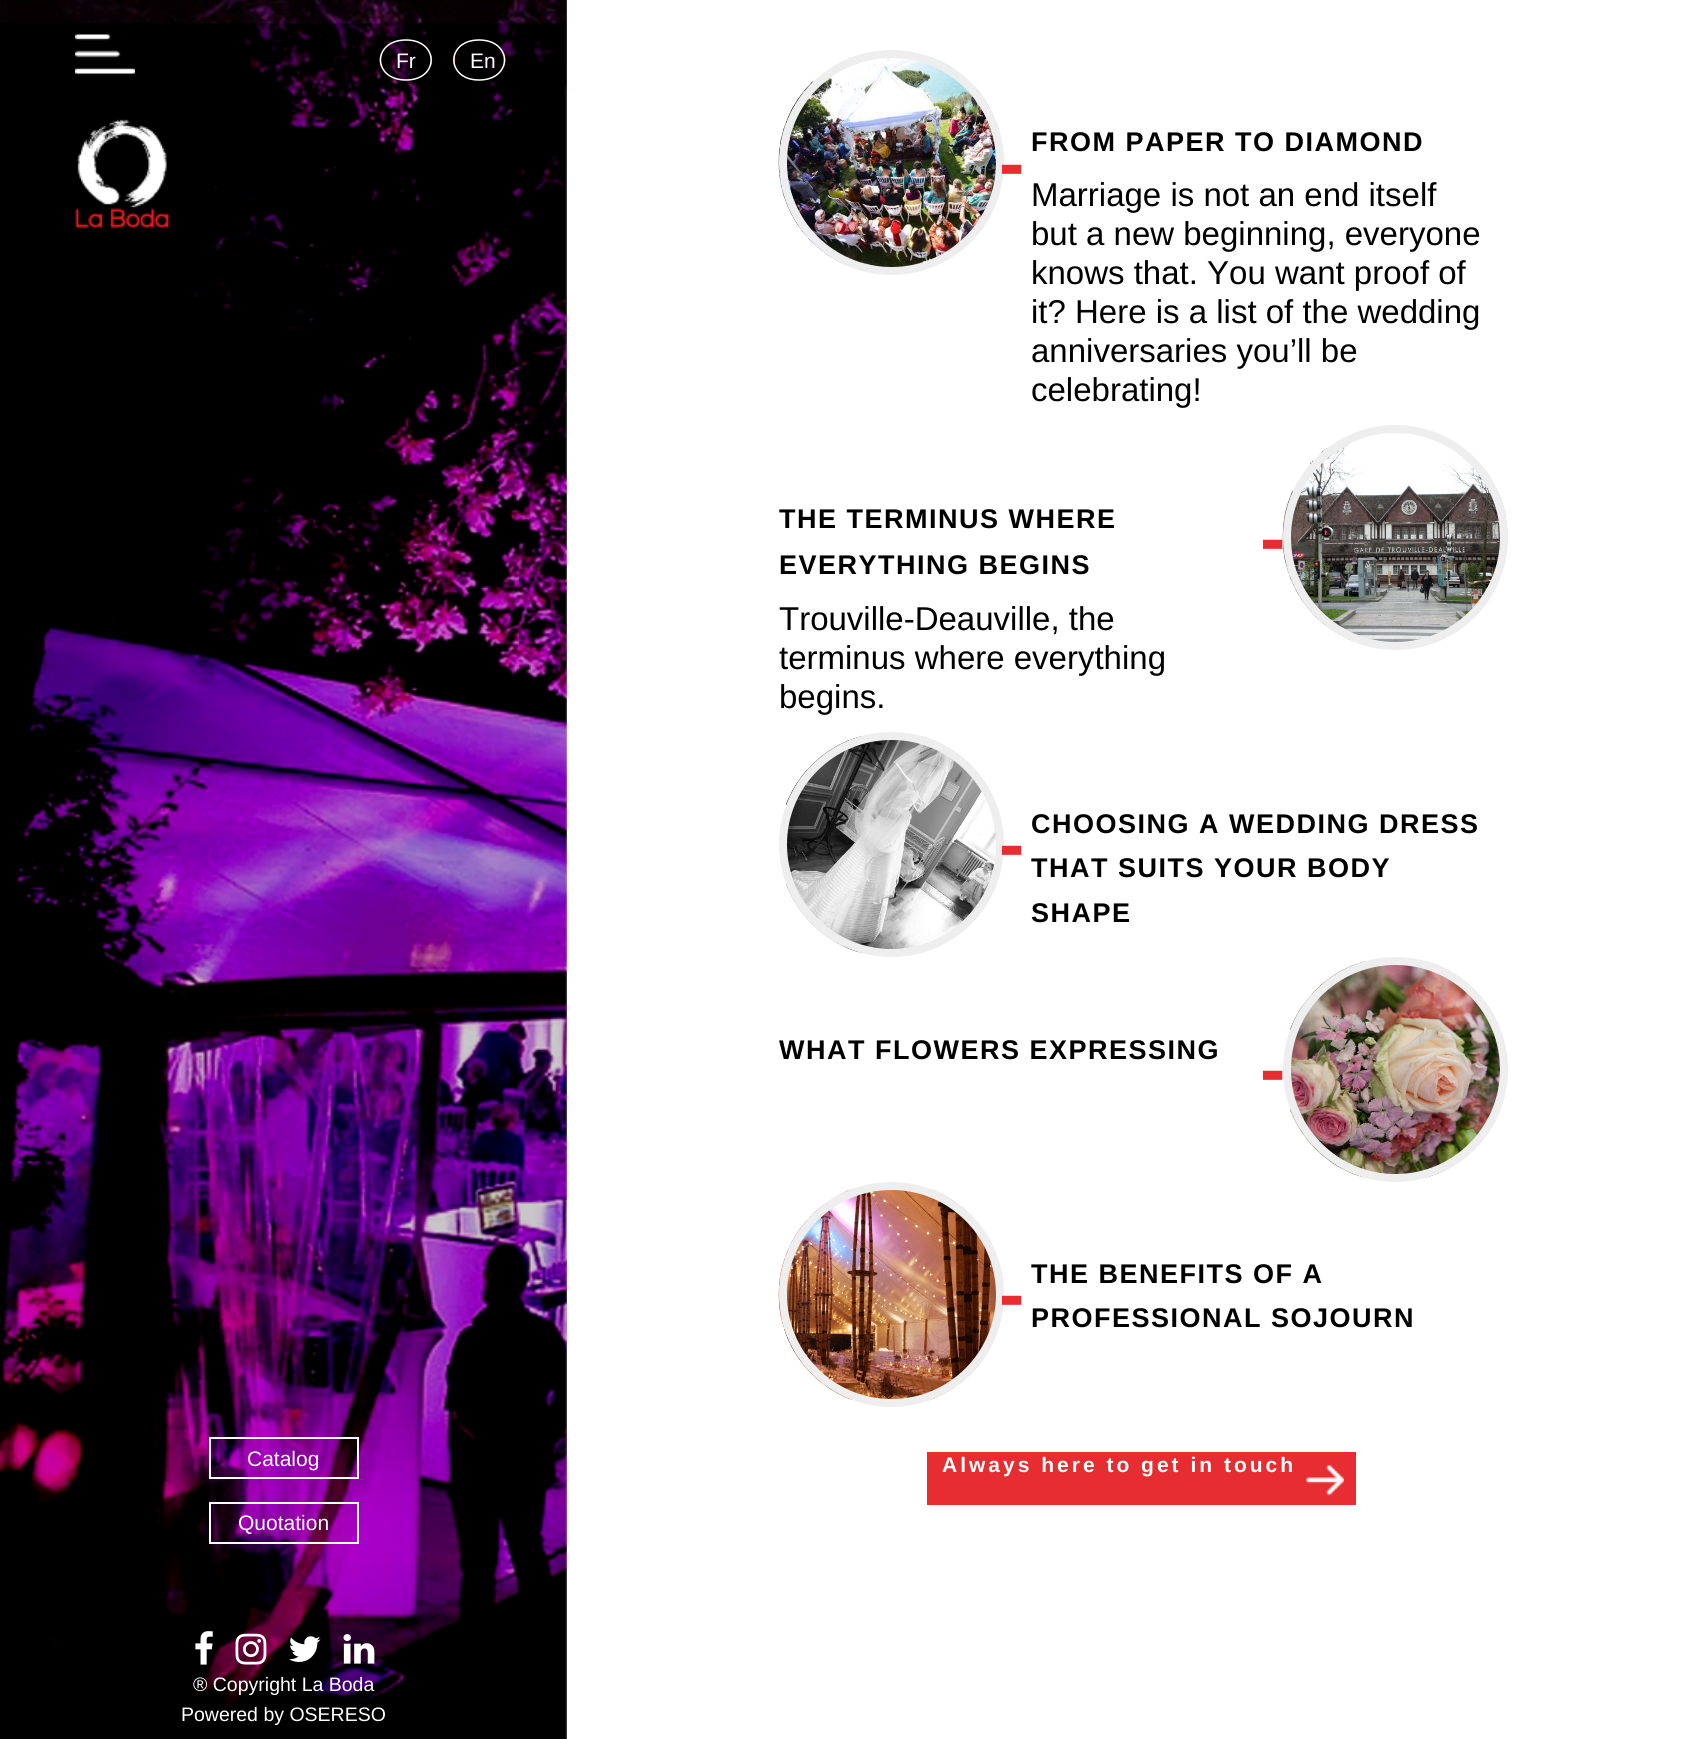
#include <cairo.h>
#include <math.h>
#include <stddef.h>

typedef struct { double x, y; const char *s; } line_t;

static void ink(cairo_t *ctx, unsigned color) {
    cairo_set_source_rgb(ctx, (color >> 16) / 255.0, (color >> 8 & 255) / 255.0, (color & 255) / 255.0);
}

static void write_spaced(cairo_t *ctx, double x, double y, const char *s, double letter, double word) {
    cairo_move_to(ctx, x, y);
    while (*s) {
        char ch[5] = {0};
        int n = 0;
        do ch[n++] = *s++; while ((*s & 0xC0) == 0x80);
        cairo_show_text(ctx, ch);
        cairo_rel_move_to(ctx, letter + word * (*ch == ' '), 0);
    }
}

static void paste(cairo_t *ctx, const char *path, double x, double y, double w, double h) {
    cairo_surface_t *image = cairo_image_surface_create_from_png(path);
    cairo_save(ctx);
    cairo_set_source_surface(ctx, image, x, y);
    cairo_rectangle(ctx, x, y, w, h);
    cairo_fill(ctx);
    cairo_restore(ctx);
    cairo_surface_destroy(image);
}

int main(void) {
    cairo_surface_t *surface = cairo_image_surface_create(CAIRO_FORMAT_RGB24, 1700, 1739);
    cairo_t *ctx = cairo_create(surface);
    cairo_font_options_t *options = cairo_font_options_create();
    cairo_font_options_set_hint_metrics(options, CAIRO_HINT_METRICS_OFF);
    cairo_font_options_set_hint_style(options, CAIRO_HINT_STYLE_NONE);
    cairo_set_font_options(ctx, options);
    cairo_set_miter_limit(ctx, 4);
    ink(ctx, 0xFFFFFF);
    cairo_paint(ctx);
    paste(ctx, "media/1.png", 0, 0, 567, 1739);
    cairo_set_source_rgba(ctx, 0, 0, 0, 0.35);
    cairo_rectangle(ctx, 7, 0, 560, 90);
    cairo_fill(ctx);
    paste(ctx, "media/2.png", 75, 34, 60, 41);
    ink(ctx, 0xE72C32);
    cairo_new_path(ctx);
    cairo_move_to(ctx, 381, 53);
    cairo_line_to(ctx, 381, 67);
    cairo_curve_to(ctx, 379, 62.5, 379, 57.5, 381, 53);
    cairo_close_path(ctx);
    cairo_move_to(ctx, 431, 54);
    cairo_curve_to(ctx, 432.5, 58, 432.5, 62, 431, 66);
    cairo_close_path(ctx);
    cairo_fill(ctx);
    cairo_new_path(ctx);
    cairo_move_to(ctx, 406, 40);
    cairo_curve_to(ctx, 439.5, 40, 439.5, 80, 406, 80);
    cairo_curve_to(ctx, 372, 80, 372, 40, 406, 40);
    cairo_close_path(ctx);
    ink(ctx, 0xFFFFFF);
    cairo_set_line_width(ctx, 1.5);
    cairo_stroke(ctx);
    cairo_select_font_face(ctx, "Liberation Sans", CAIRO_FONT_SLANT_NORMAL, CAIRO_FONT_WEIGHT_NORMAL);
    cairo_set_font_size(ctx, 21);
    cairo_move_to(ctx, 396, 68);
    cairo_show_text(ctx, "Fr");
    ink(ctx, 0xE72C32);
    cairo_new_path(ctx);
    cairo_move_to(ctx, 455, 52);
    cairo_line_to(ctx, 455, 68);
    cairo_curve_to(ctx, 452.5, 63, 452.5, 57, 455, 52);
    cairo_close_path(ctx);
    cairo_move_to(ctx, 504, 53);
    cairo_curve_to(ctx, 506, 57.5, 506, 62.5, 504, 67);
    cairo_close_path(ctx);
    cairo_fill(ctx);
    cairo_new_path(ctx);
    cairo_move_to(ctx, 479, 40);
    cairo_curve_to(ctx, 513, 40, 513, 80, 479, 80);
    cairo_curve_to(ctx, 445.5, 80, 445.5, 40, 479, 40);
    cairo_close_path(ctx);
    ink(ctx, 0xFFFFFF);
    cairo_stroke(ctx);
    cairo_move_to(ctx, 470, 68);
    cairo_show_text(ctx, "En");
    paste(ctx, "media/3.png", 75, 119, 95, 110);
    cairo_rectangle(ctx, 210, 1438, 148, 40);
    cairo_set_line_width(ctx, 2);
    cairo_stroke(ctx);
    cairo_move_to(ctx, 247, 1466);
    cairo_show_text(ctx, "Catalog");
    cairo_rectangle(ctx, 210, 1503, 148, 40);
    cairo_stroke(ctx);
    cairo_move_to(ctx, 238, 1530);
    cairo_show_text(ctx, "Quotation");
    paste(ctx, "media/4.png", 195, 1631, 18, 34);
    paste(ctx, "media/5.png", 235, 1633, 32, 32);
    paste(ctx, "media/6.png", 289, 1636, 32, 26);
    paste(ctx, "media/7.png", 343, 1634, 32, 30);
    cairo_set_font_size(ctx, 19.5);
    cairo_move_to(ctx, 193, 1691);
    cairo_show_text(ctx, "® Copyright La Boda");
    cairo_move_to(ctx, 181, 1721);
    cairo_show_text(ctx, "Powered by OSERESO");
    paste(ctx, "media/8.png", 778, 57, 226, 210);
    cairo_arc(ctx, 891.5, 162.5, 108.5, 0, 2 * M_PI);
    ink(ctx, 0xEEEEEE);
    cairo_set_line_width(ctx, 8);
    cairo_stroke(ctx);
    cairo_select_font_face(ctx, "Liberation Sans", CAIRO_FONT_SLANT_NORMAL, CAIRO_FONT_WEIGHT_BOLD);
    cairo_set_font_size(ctx, 76);
    ink(ctx, 0xE72C32);
    write_spaced(ctx, 999, 189, "-", 1.5, 0);
    cairo_set_font_size(ctx, 27);
    ink(ctx, 0x000000);
    write_spaced(ctx, 1031, 151, "FROM PAPER TO DIAMOND", 1.5, 0);
    cairo_select_font_face(ctx, "Liberation Sans", CAIRO_FONT_SLANT_NORMAL, CAIRO_FONT_WEIGHT_NORMAL);
    cairo_set_font_size(ctx, 33);
    {
        static const line_t items[] = {
            {1031, 206, "Marriage is not an end itself"},
            {1031, 245, "but a new beginning, everyone"},
            {1031, 284, "knows that. You want proof of"},
            {1031, 323, "it? Here is a list of the wedding"},
            {1031, 362, "anniversaries you’ll be"},
            {1031, 401, "celebrating!"},
        };
        for (size_t i = 0; i < sizeof items / sizeof *items; i++) {
            cairo_move_to(ctx, items[i].x, items[i].y);
            cairo_show_text(ctx, items[i].s);
        }
    }
    cairo_select_font_face(ctx, "Liberation Sans", CAIRO_FONT_SLANT_NORMAL, CAIRO_FONT_WEIGHT_BOLD);
    cairo_set_font_size(ctx, 27);
    write_spaced(ctx, 779, 528, "THE TERMINUS WHERE", 1.5, 0);
    write_spaced(ctx, 779, 574, "EVERYTHING BEGINS", 1.5, 0);
    cairo_select_font_face(ctx, "Liberation Sans", CAIRO_FONT_SLANT_NORMAL, CAIRO_FONT_WEIGHT_NORMAL);
    cairo_set_font_size(ctx, 33);
    {
        static const line_t items[] = {
            {779, 630, "Trouville-Deauville, the"},
            {779, 669, "terminus where everything"},
            {779, 708, "begins."},
        };
        for (size_t i = 0; i < sizeof items / sizeof *items; i++) {
            cairo_move_to(ctx, items[i].x, items[i].y);
            cairo_show_text(ctx, items[i].s);
        }
    }
    paste(ctx, "media/9.png", 1282, 436, 226, 206);
    cairo_arc(ctx, 1395.5, 537.5, 108.5, 0, 2 * M_PI);
    ink(ctx, 0xEEEEEE);
    cairo_stroke(ctx);
    cairo_select_font_face(ctx, "Liberation Sans", CAIRO_FONT_SLANT_NORMAL, CAIRO_FONT_WEIGHT_BOLD);
    cairo_set_font_size(ctx, 76);
    ink(ctx, 0xE72C32);
    write_spaced(ctx, 1260, 564, "-", 1.5, 0);
    paste(ctx, "media/10.png", 786, 736, 210, 217);
    cairo_arc(ctx, 891.5, 844.5, 108.5, 0, 2 * M_PI);
    ink(ctx, 0xEEEEEE);
    cairo_stroke(ctx);
    ink(ctx, 0xE72C32);
    write_spaced(ctx, 999, 870, "-", 1.5, 0);
    cairo_set_font_size(ctx, 27);
    ink(ctx, 0x000000);
    {
        static const line_t items[] = {
            {1031, 833, "CHOOSING A WEDDING DRESS"},
            {1031, 877, "THAT SUITS YOUR BODY"},
            {1031, 922, "SHAPE"},
            {779, 1059, "WHAT FLOWERS EXPRESSING"},
        };
        for (size_t i = 0; i < sizeof items / sizeof *items; i++) {
            write_spaced(ctx, items[i].x, items[i].y, items[i].s, 1.5, 0);
        }
    }
    paste(ctx, "media/11.png", 1290, 961, 210, 217);
    cairo_arc(ctx, 1395.5, 1069.5, 108.5, 0, 2 * M_PI);
    ink(ctx, 0xEEEEEE);
    cairo_stroke(ctx);
    cairo_set_font_size(ctx, 76);
    ink(ctx, 0xE72C32);
    write_spaced(ctx, 1260, 1095, "-", 1.5, 0);
    paste(ctx, "media/12.png", 778, 1189, 226, 211);
    cairo_arc(ctx, 891.5, 1294.5, 108.5, 0, 2 * M_PI);
    ink(ctx, 0xEEEEEE);
    cairo_stroke(ctx);
    ink(ctx, 0xE72C32);
    write_spaced(ctx, 999, 1320, "-", 1.5, 0);
    cairo_set_font_size(ctx, 27);
    ink(ctx, 0x000000);
    write_spaced(ctx, 1031, 1283, "THE BENEFITS OF A", 1.5, 0);
    write_spaced(ctx, 1031, 1327, "PROFESSIONAL SOJOURN", 1.5, 0);
    ink(ctx, 0xE72C32);
    cairo_rectangle(ctx, 927, 1452, 429, 53);
    cairo_fill(ctx);
    cairo_set_font_size(ctx, 21);
    ink(ctx, 0xFFFFFF);
    write_spaced(ctx, 942, 1472, "Always here to get in touch", 3, 0);
    paste(ctx, "media/13.png", 1306, 1465, 38, 31);
    cairo_surface_write_to_png(surface, "image.png");
    cairo_font_options_destroy(options);
    cairo_destroy(ctx);
    cairo_surface_destroy(surface);
    return 0;
}
